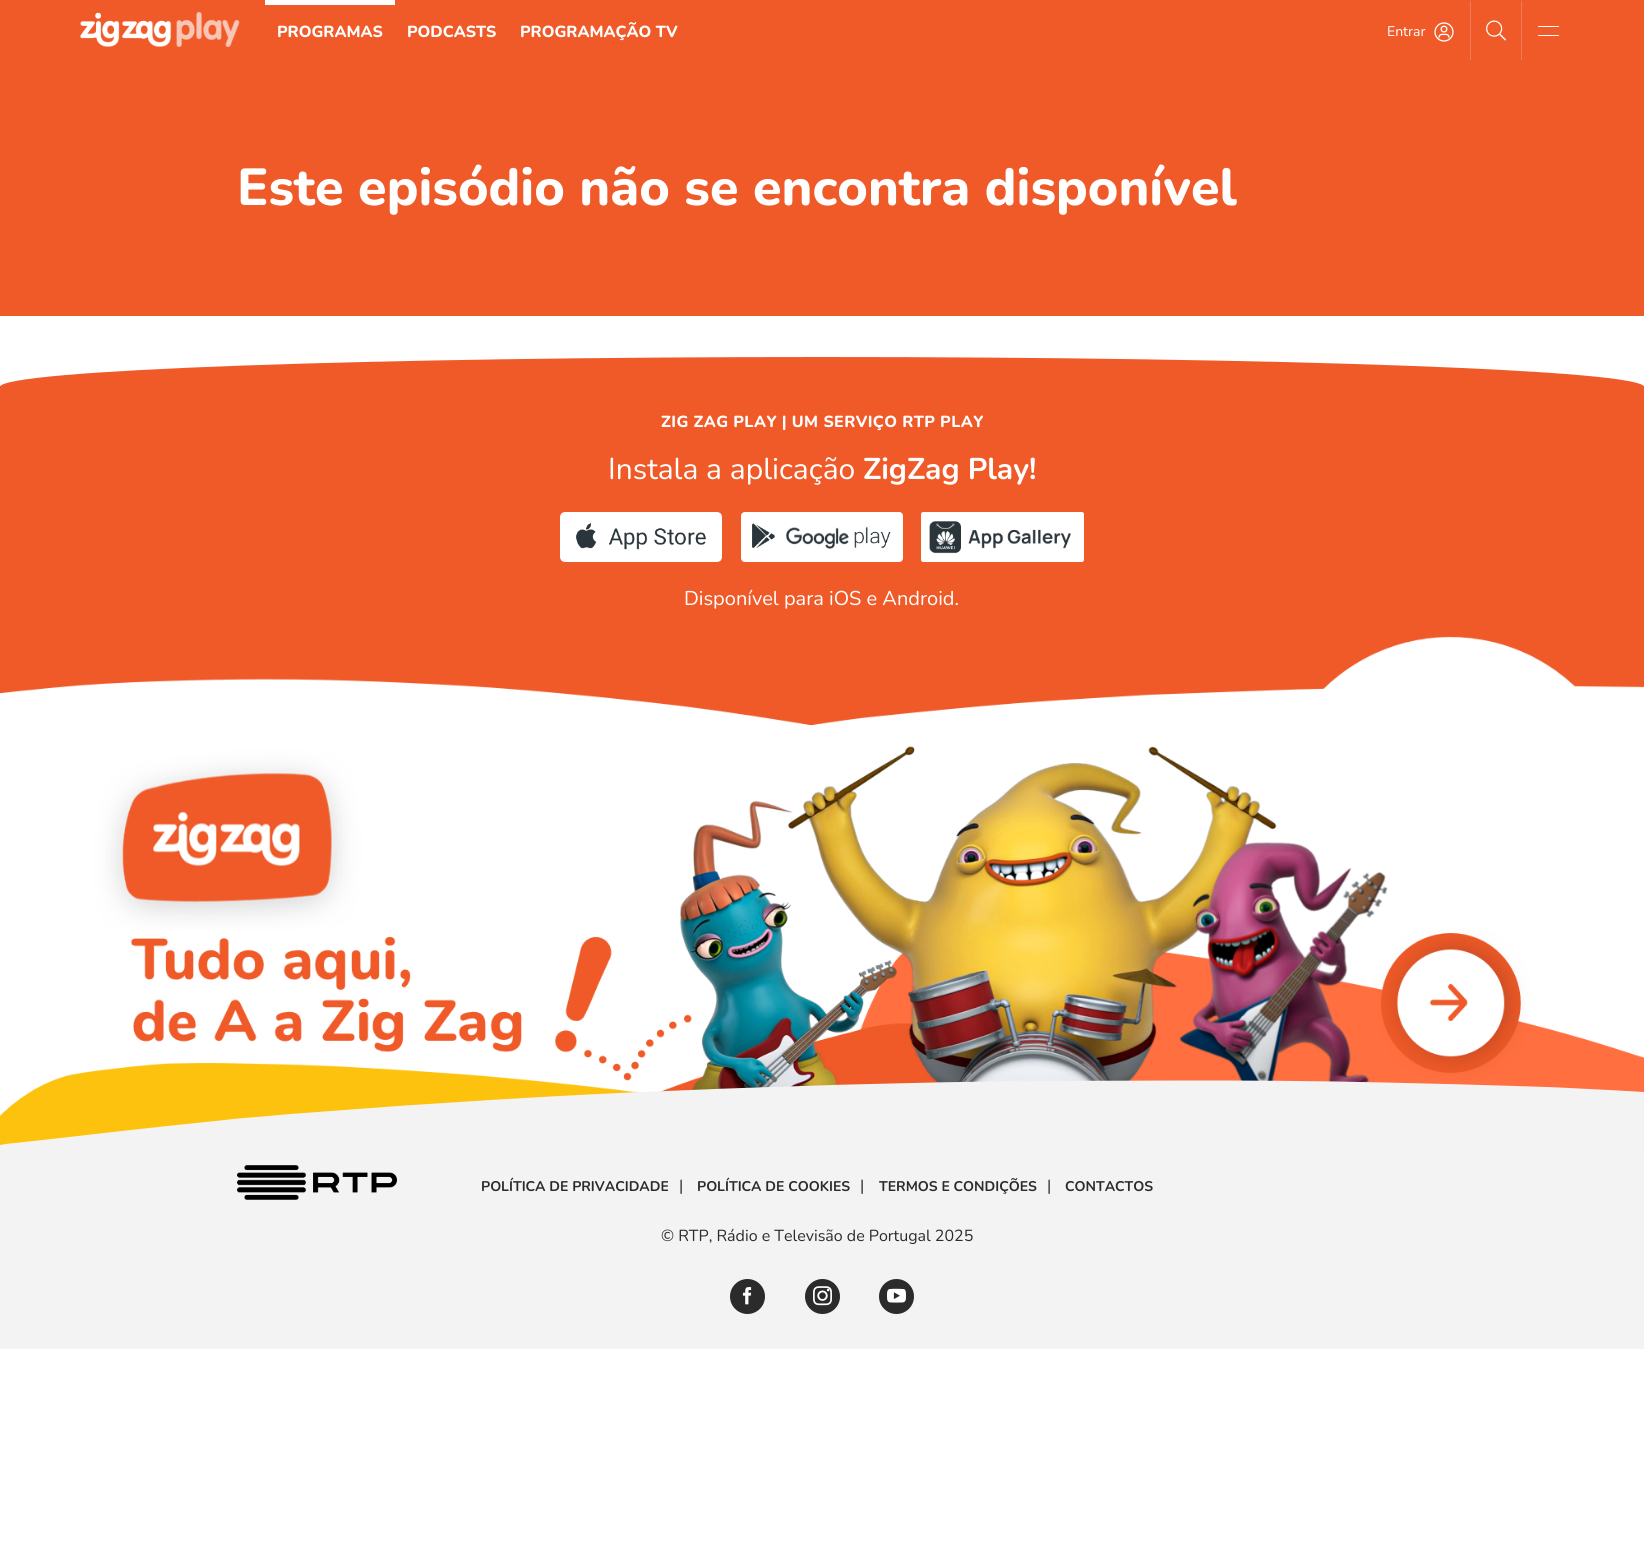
#include <cairo.h>
#include <math.h>
#include <stddef.h>

typedef struct { double x, y; const char *s; } line_t;

static void ink(cairo_t *ctx, unsigned color) {
    cairo_set_source_rgb(ctx, (color >> 16) / 255.0, (color >> 8 & 255) / 255.0, (color & 255) / 255.0);
}

static void write_spaced(cairo_t *ctx, double x, double y, const char *s, double letter, double word) {
    cairo_move_to(ctx, x, y);
    while (*s) {
        char ch[5] = {0};
        int n = 0;
        do ch[n++] = *s++; while ((*s & 0xC0) == 0x80);
        cairo_show_text(ctx, ch);
        cairo_rel_move_to(ctx, letter + word * (*ch == ' '), 0);
    }
}

static void round_path(cairo_t *ctx, double x, double y, double w, double h, double r) {
    cairo_new_sub_path(ctx);
    cairo_arc(ctx, x + w - r, y + h - r, r, 0, M_PI / 2);
    cairo_arc(ctx, x + r, y + h - r, r, M_PI / 2, M_PI);
    cairo_arc(ctx, x + r, y + r, r, M_PI, 1.5 * M_PI);
    cairo_arc(ctx, x + w - r, y + r, r, 1.5 * M_PI, 2 * M_PI);
    cairo_close_path(ctx);
}

static void paste(cairo_t *ctx, const char *path, double x, double y, double w, double h) {
    cairo_surface_t *image = cairo_image_surface_create_from_png(path);
    cairo_save(ctx);
    cairo_set_source_surface(ctx, image, x, y);
    cairo_rectangle(ctx, x, y, w, h);
    cairo_fill(ctx);
    cairo_restore(ctx);
    cairo_surface_destroy(image);
}

int main(void) {
    cairo_surface_t *surface = cairo_image_surface_create(CAIRO_FORMAT_RGB24, 1644, 1560);
    cairo_t *ctx = cairo_create(surface);
    cairo_font_options_t *options = cairo_font_options_create();
    cairo_font_options_set_hint_metrics(options, CAIRO_HINT_METRICS_OFF);
    cairo_font_options_set_hint_style(options, CAIRO_HINT_STYLE_NONE);
    cairo_set_font_options(ctx, options);
    cairo_set_miter_limit(ctx, 4);
    ink(ctx, 0xFFFFFF);
    cairo_paint(ctx);
    ink(ctx, 0xEF5A28);
    cairo_rectangle(ctx, 0, 0, 1644, 316);
    cairo_fill(ctx);
    paste(ctx, "media/1.png", 80, 12, 160, 35);
    ink(ctx, 0xFFFFFF);
    cairo_rectangle(ctx, 265, 0, 130, 5);
    cairo_fill(ctx);
    cairo_select_font_face(ctx, "Nunito ExtraBold", CAIRO_FONT_SLANT_NORMAL, CAIRO_FONT_WEIGHT_NORMAL);
    cairo_set_font_size(ctx, 16);
    {
        static const line_t items[] = {
            {277, 37, "PROGRAMAS"},
            {407, 37, "PODCASTS"},
            {520, 37, "PROGRAMAÇÃO TV"},
        };
        for (size_t i = 0; i < sizeof items / sizeof *items; i++) {
            cairo_move_to(ctx, items[i].x, items[i].y);
            cairo_show_text(ctx, items[i].s);
        }
    }
    ink(ctx, 0xF27B53);
    cairo_new_path(ctx);
    cairo_move_to(ctx, 1471, 0);
    cairo_line_to(ctx, 1471, 60);
    cairo_line_to(ctx, 1470, 60);
    cairo_line_to(ctx, 1470, 3);
    cairo_close_path(ctx);
    cairo_fill(ctx);
    cairo_select_font_face(ctx, "Nunito", CAIRO_FONT_SLANT_NORMAL, CAIRO_FONT_WEIGHT_NORMAL);
    cairo_set_font_size(ctx, 14);
    ink(ctx, 0xFFFFFF);
    cairo_move_to(ctx, 1387, 36);
    cairo_show_text(ctx, "Entrar");
    paste(ctx, "media/2.png", 1434, 22, 20, 20);
    ink(ctx, 0xF27B53);
    cairo_new_path(ctx);
    cairo_move_to(ctx, 1522, 0);
    cairo_line_to(ctx, 1522, 60);
    cairo_line_to(ctx, 1521, 60);
    cairo_line_to(ctx, 1521, 3);
    cairo_close_path(ctx);
    cairo_fill(ctx);
    paste(ctx, "media/3.png", 1486, 20, 20, 21);
    ink(ctx, 0xFFFFFF);
    round_path(ctx, 1538, 26, 21, 1, 0.5);
    cairo_fill(ctx);
    round_path(ctx, 1538, 35, 21, 1, 0.5);
    cairo_fill(ctx);
    cairo_select_font_face(ctx, "Nunito ExtraBold", CAIRO_FONT_SLANT_NORMAL, CAIRO_FONT_WEIGHT_NORMAL);
    cairo_set_font_size(ctx, 52);
    cairo_move_to(ctx, 237, 205);
    cairo_show_text(ctx, "Este episódio não se encontra disponível");
    ink(ctx, 0xEF5A28);
    cairo_rectangle(ctx, 0, 386, 1644, 340);
    cairo_fill(ctx);
    cairo_new_path(ctx);
    cairo_move_to(ctx, 822, 357);
    cairo_curve_to(ctx, 1276, 357, 1644, 370, 1644, 387);
    cairo_line_to(ctx, 0, 387);
    cairo_curve_to(ctx, 0, 370, 368, 357, 822, 357);
    cairo_close_path(ctx);
    cairo_fill(ctx);
    cairo_set_font_size(ctx, 16);
    ink(ctx, 0xFFFFFF);
    write_spaced(ctx, 661, 427, "ZIG ZAG PLAY | UM SERVIÇO RTP PLAY", 0.4, 0);
    cairo_select_font_face(ctx, "Nunito", CAIRO_FONT_SLANT_NORMAL, CAIRO_FONT_WEIGHT_NORMAL);
    cairo_set_font_size(ctx, 30);
    cairo_move_to(ctx, 608, 479);
    cairo_show_text(ctx, "Instala a aplicação");
    cairo_select_font_face(ctx, "Nunito", CAIRO_FONT_SLANT_NORMAL, CAIRO_FONT_WEIGHT_BOLD);
    cairo_move_to(ctx, 863, 479);
    cairo_show_text(ctx, "ZigZag Play!");
    paste(ctx, "media/4.png", 560, 512, 162, 50);
    paste(ctx, "media/5.png", 741, 512, 162, 50);
    paste(ctx, "media/6.png", 921, 512, 163, 50);
    cairo_select_font_face(ctx, "Nunito", CAIRO_FONT_SLANT_NORMAL, CAIRO_FONT_WEIGHT_NORMAL);
    cairo_set_font_size(ctx, 20);
    cairo_move_to(ctx, 684, 605);
    cairo_show_text(ctx, "Disponível para iOS e Android.");
    paste(ctx, "media/7.png", 0, 636, 1644, 108);
    paste(ctx, "media/8.png", 0, 746, 1644, 409);
    paste(ctx, "media/9.png", 0, 1080, 1644, 85);
    ink(ctx, 0xF3F3F3);
    cairo_rectangle(ctx, 0, 1165, 1644, 184);
    cairo_fill(ctx);
    paste(ctx, "media/10.png", 237, 1165, 160, 35);
    cairo_select_font_face(ctx, "Nunito", CAIRO_FONT_SLANT_NORMAL, CAIRO_FONT_WEIGHT_BOLD);
    cairo_set_font_size(ctx, 14);
    ink(ctx, 0x2B2B2B);
    cairo_move_to(ctx, 481, 1191);
    cairo_show_text(ctx, "POLÍTICA DE PRIVACIDADE");
    cairo_select_font_face(ctx, "Nunito", CAIRO_FONT_SLANT_NORMAL, CAIRO_FONT_WEIGHT_NORMAL);
    cairo_set_font_size(ctx, 16);
    cairo_move_to(ctx, 679, 1191);
    cairo_show_text(ctx, "|");
    cairo_select_font_face(ctx, "Nunito", CAIRO_FONT_SLANT_NORMAL, CAIRO_FONT_WEIGHT_BOLD);
    cairo_set_font_size(ctx, 14);
    cairo_move_to(ctx, 697, 1191);
    cairo_show_text(ctx, "POLÍTICA DE COOKIES");
    cairo_select_font_face(ctx, "Nunito", CAIRO_FONT_SLANT_NORMAL, CAIRO_FONT_WEIGHT_NORMAL);
    cairo_set_font_size(ctx, 16);
    cairo_move_to(ctx, 860, 1191);
    cairo_show_text(ctx, "|");
    cairo_select_font_face(ctx, "Nunito", CAIRO_FONT_SLANT_NORMAL, CAIRO_FONT_WEIGHT_BOLD);
    cairo_set_font_size(ctx, 14);
    cairo_move_to(ctx, 879, 1191);
    cairo_show_text(ctx, "TERMOS E CONDIÇÕES");
    cairo_select_font_face(ctx, "Nunito", CAIRO_FONT_SLANT_NORMAL, CAIRO_FONT_WEIGHT_NORMAL);
    cairo_set_font_size(ctx, 16);
    cairo_move_to(ctx, 1047, 1191);
    cairo_show_text(ctx, "|");
    cairo_select_font_face(ctx, "Nunito", CAIRO_FONT_SLANT_NORMAL, CAIRO_FONT_WEIGHT_BOLD);
    cairo_set_font_size(ctx, 14);
    cairo_move_to(ctx, 1065, 1191);
    cairo_show_text(ctx, "CONTACTOS");
    cairo_select_font_face(ctx, "Nunito", CAIRO_FONT_SLANT_NORMAL, CAIRO_FONT_WEIGHT_NORMAL);
    cairo_set_font_size(ctx, 16);
    cairo_move_to(ctx, 661, 1241);
    cairo_show_text(ctx, "© RTP, Rádio e Televisão de Portugal 2025");
    cairo_new_path(ctx);
    cairo_arc(ctx, 747.5, 1296.5, 17.5, 0, 2 * M_PI);
    cairo_fill(ctx);
    paste(ctx, "media/11.png", 742, 1287, 10, 18);
    cairo_arc(ctx, 822.5, 1296.5, 17.5, 0, 2 * M_PI);
    cairo_fill(ctx);
    paste(ctx, "media/12.png", 813, 1286, 19, 20);
    cairo_arc(ctx, 896.5, 1296.5, 17.5, 0, 2 * M_PI);
    cairo_fill(ctx);
    paste(ctx, "media/13.png", 887, 1288, 19, 15);
    cairo_surface_write_to_png(surface, "image.png");
    cairo_font_options_destroy(options);
    cairo_destroy(ctx);
    cairo_surface_destroy(surface);
    return 0;
}
